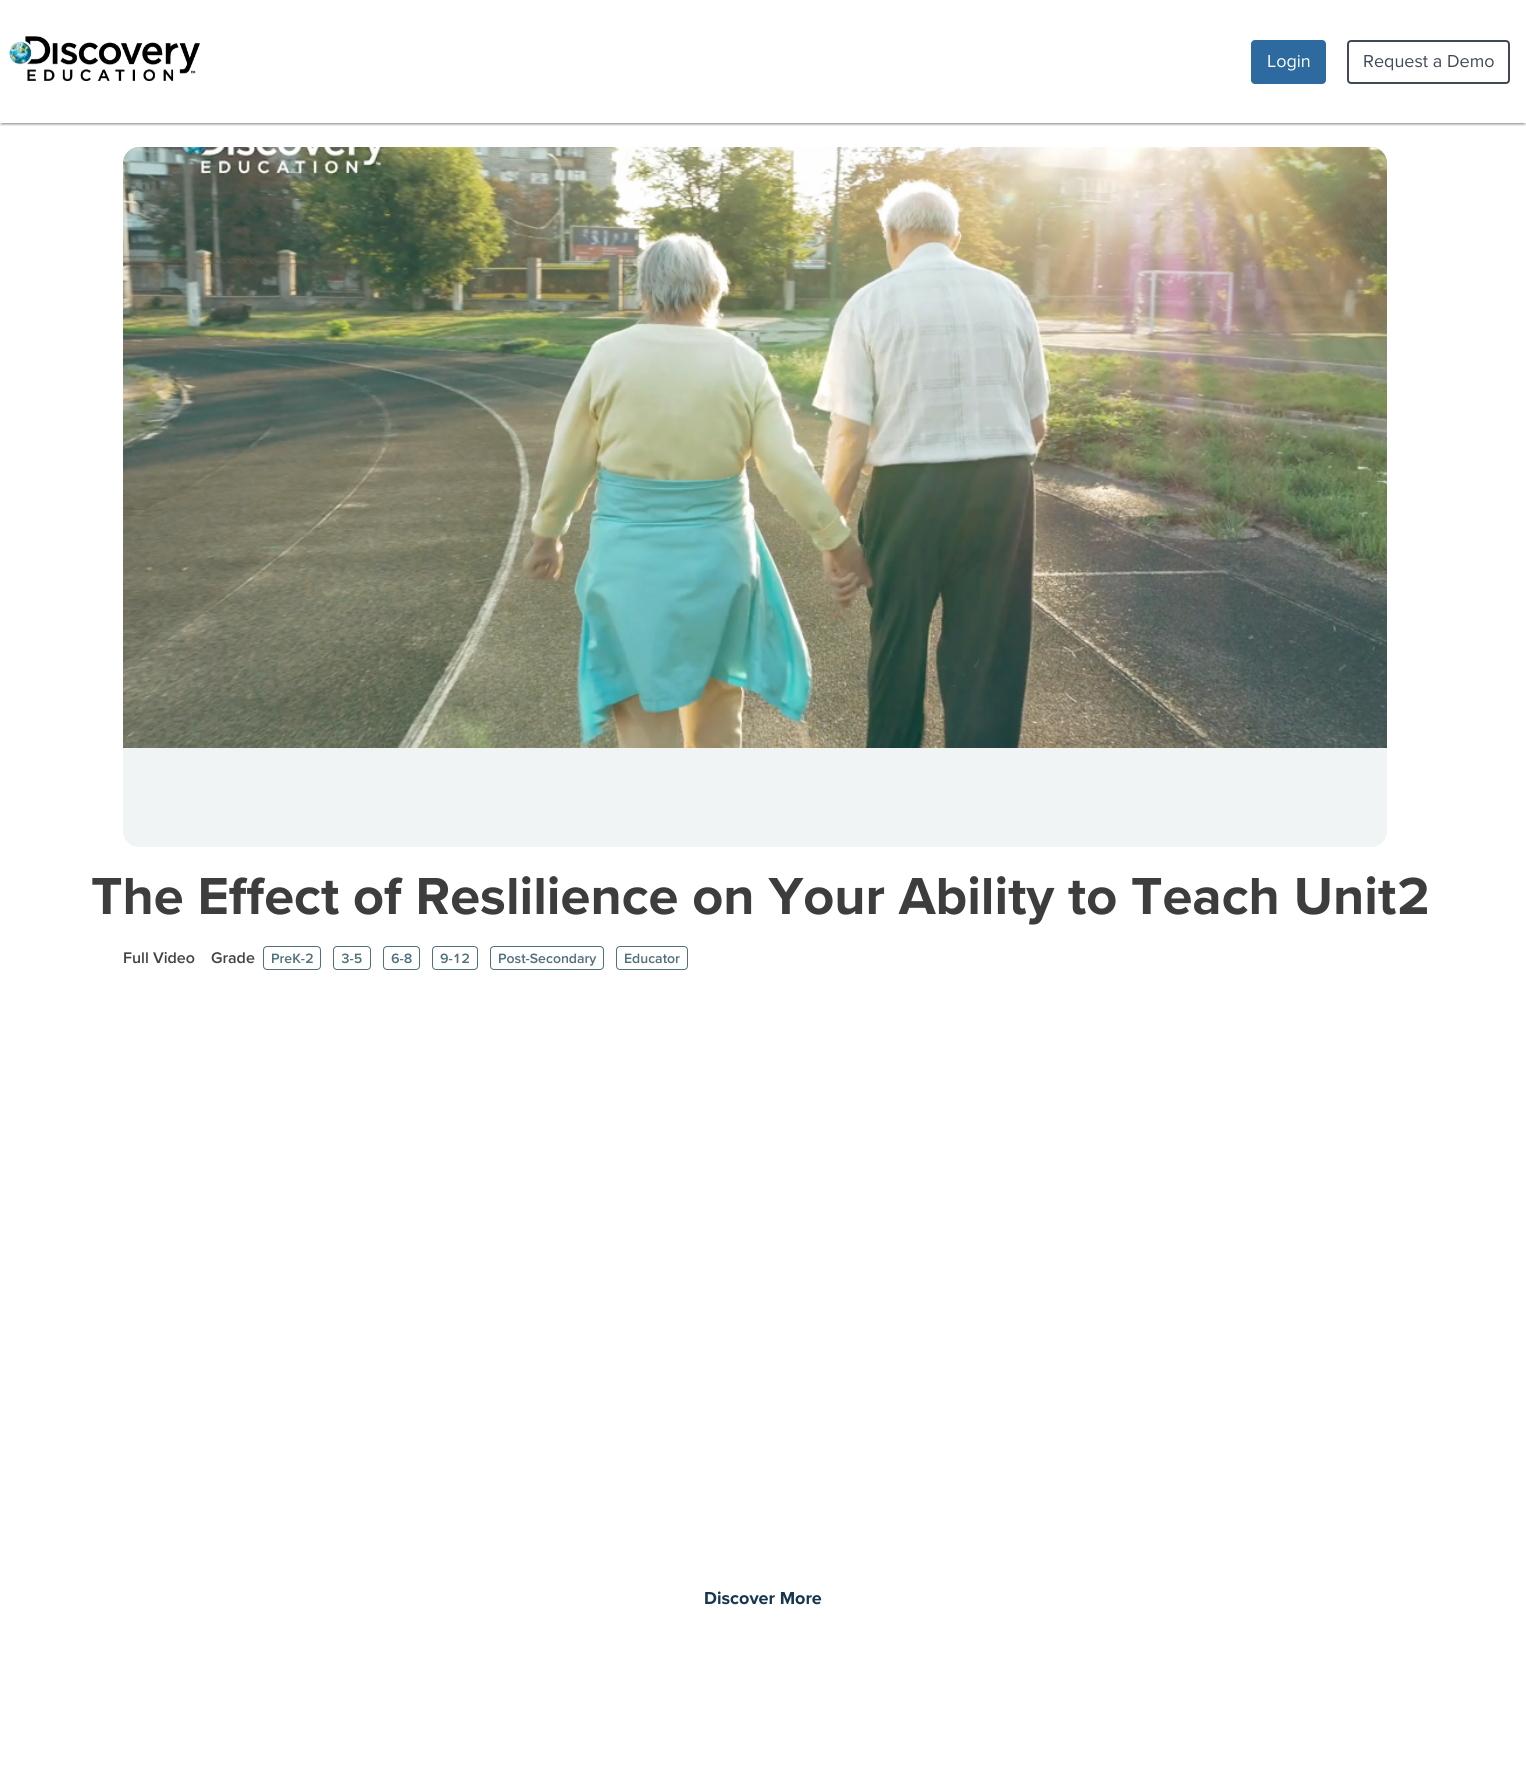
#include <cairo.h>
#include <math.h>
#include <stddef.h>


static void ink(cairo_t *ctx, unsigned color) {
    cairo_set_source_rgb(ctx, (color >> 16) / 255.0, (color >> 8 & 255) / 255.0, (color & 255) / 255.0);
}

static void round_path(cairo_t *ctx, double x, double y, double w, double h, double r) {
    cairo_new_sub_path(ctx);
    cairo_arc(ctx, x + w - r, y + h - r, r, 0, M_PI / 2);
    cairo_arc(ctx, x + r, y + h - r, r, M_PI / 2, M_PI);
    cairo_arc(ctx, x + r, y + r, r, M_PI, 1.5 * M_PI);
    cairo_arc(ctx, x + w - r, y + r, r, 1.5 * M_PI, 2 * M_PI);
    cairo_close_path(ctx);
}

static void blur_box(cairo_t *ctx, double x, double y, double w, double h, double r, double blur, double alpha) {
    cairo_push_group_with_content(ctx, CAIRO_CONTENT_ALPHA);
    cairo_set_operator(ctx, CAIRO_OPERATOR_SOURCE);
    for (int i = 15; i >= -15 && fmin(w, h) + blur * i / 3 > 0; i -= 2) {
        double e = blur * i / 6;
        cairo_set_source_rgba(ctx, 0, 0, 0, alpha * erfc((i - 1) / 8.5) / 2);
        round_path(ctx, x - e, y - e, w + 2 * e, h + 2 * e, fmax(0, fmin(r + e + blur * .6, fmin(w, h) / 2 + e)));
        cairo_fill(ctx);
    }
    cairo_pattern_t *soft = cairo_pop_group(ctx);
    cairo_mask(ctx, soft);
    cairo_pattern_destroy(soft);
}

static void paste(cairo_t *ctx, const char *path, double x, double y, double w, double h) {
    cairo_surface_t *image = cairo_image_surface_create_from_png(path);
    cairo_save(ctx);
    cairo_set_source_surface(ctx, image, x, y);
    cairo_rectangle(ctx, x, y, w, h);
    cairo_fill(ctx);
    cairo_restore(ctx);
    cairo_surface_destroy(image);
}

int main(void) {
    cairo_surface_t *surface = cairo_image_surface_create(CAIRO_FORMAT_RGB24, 1526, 1789);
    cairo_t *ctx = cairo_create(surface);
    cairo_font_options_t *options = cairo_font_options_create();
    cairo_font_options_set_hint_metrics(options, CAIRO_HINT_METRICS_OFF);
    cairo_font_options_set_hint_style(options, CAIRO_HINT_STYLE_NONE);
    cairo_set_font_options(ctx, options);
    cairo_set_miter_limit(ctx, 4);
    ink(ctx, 0xFFFFFF);
    cairo_paint(ctx);
    cairo_save(ctx);
    cairo_rectangle(ctx, 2, 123, 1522, 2);
    cairo_clip(ctx);
    ink(ctx, 0x000000);
    blur_box(ctx, 2, 5, 1522, 119, 0, 0.5, 0.2);
    cairo_restore(ctx);
    cairo_save(ctx);
    cairo_rectangle(ctx, 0, 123, 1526, 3);
    cairo_clip(ctx);
    ink(ctx, 0x000000);
    blur_box(ctx, 0, 1, 1526, 123, 0, 2.5, 0.12);
    blur_box(ctx, 0, 2, 1526, 123, 0, 1, 0.14);
    cairo_restore(ctx);
    paste(ctx, "media/1.png", 9, 36, 191, 45);
    ink(ctx, 0x2D6A9F);
    round_path(ctx, 1251, 40, 75, 44, 4);
    cairo_fill(ctx);
    cairo_select_font_face(ctx, "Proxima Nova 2", CAIRO_FONT_SLANT_NORMAL, CAIRO_FONT_WEIGHT_NORMAL);
    cairo_set_font_size(ctx, 18);
    ink(ctx, 0xFFFFFF);
    cairo_move_to(ctx, 1267, 67);
    cairo_show_text(ctx, "Login");
    round_path(ctx, 1348, 41, 161, 42, 3);
    ink(ctx, 0x414858);
    cairo_stroke(ctx);
    cairo_move_to(ctx, 1363, 67);
    cairo_show_text(ctx, "Request a Demo");
    ink(ctx, 0xF0F4F5);
    round_path(ctx, 123, 147, 1264, 700, 16);
    cairo_fill(ctx);
    cairo_new_path(ctx);
    cairo_move_to(ctx, 139, 147);
    cairo_line_to(ctx, 1371, 147);
    cairo_curve_to(ctx, 1380, 147, 1387, 154, 1387, 163);
    cairo_line_to(ctx, 1387, 748);
    cairo_line_to(ctx, 123, 748);
    cairo_line_to(ctx, 123, 163);
    cairo_curve_to(ctx, 123, 154, 130, 147, 139, 147);
    cairo_close_path(ctx);
    cairo_fill(ctx);
    paste(ctx, "media/2.png", 123, 147, 1264, 601);
    cairo_select_font_face(ctx, "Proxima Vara", CAIRO_FONT_SLANT_NORMAL, CAIRO_FONT_WEIGHT_BOLD);
    cairo_set_font_size(ctx, 54);
    ink(ctx, 0x3D3D3D);
    cairo_move_to(ctx, 91, 914);
    cairo_show_text(ctx, "The Effect of Reslilience on Your Ability to Teach Unit2");
    cairo_select_font_face(ctx, "Proxima Vara SemiBold", CAIRO_FONT_SLANT_NORMAL, CAIRO_FONT_WEIGHT_NORMAL);
    cairo_set_font_size(ctx, 16);
    ink(ctx, 0x444444);
    cairo_move_to(ctx, 123, 963);
    cairo_show_text(ctx, "Full Video");
    cairo_move_to(ctx, 211, 963);
    cairo_show_text(ctx, "Grade");
    round_path(ctx, 263.5, 946.5, 57, 23, 3.5);
    ink(ctx, 0x50717C);
    cairo_set_line_width(ctx, 1);
    cairo_stroke(ctx);
    cairo_set_font_size(ctx, 14);
    cairo_move_to(ctx, 271, 963);
    cairo_show_text(ctx, "PreK-2");
    round_path(ctx, 333.5, 946.5, 37, 23, 3.5);
    cairo_stroke(ctx);
    cairo_move_to(ctx, 341, 963);
    cairo_show_text(ctx, "3-5");
    round_path(ctx, 383.5, 946.5, 36, 23, 3.5);
    cairo_stroke(ctx);
    cairo_move_to(ctx, 391, 963);
    cairo_show_text(ctx, "6-8");
    round_path(ctx, 432.5, 946.5, 45, 23, 3.5);
    cairo_stroke(ctx);
    cairo_move_to(ctx, 440, 963);
    cairo_show_text(ctx, "9-12");
    round_path(ctx, 490.5, 946.5, 113, 23, 3.5);
    cairo_stroke(ctx);
    cairo_move_to(ctx, 498, 963);
    cairo_show_text(ctx, "Post-Secondary");
    round_path(ctx, 616.5, 946.5, 71, 23, 3.5);
    cairo_stroke(ctx);
    cairo_move_to(ctx, 624, 963);
    cairo_show_text(ctx, "Educator");
    cairo_select_font_face(ctx, "Proxima Nova", CAIRO_FONT_SLANT_NORMAL, CAIRO_FONT_WEIGHT_NORMAL);
    cairo_set_font_size(ctx, 18);
    ink(ctx, 0x163550);
    cairo_move_to(ctx, 704, 1604);
    cairo_show_text(ctx, "Discover More");
    cairo_surface_write_to_png(surface, "image.png");
    cairo_font_options_destroy(options);
    cairo_destroy(ctx);
    cairo_surface_destroy(surface);
    return 0;
}
